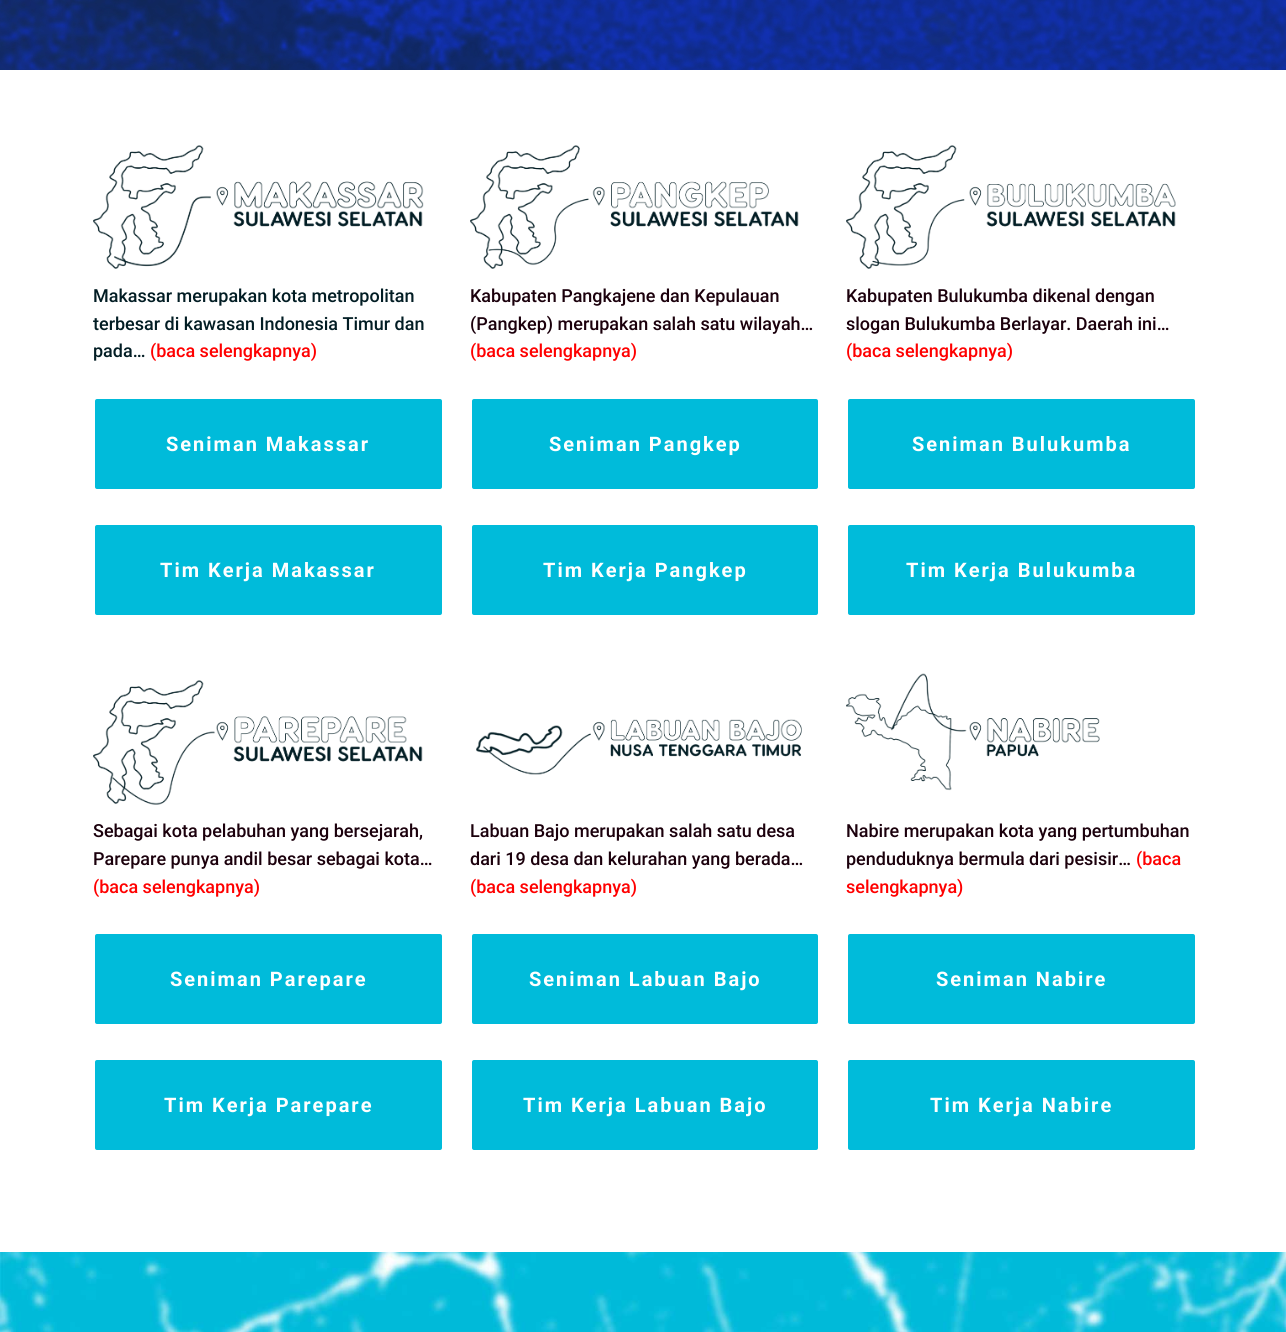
#include <cairo.h>
#include <math.h>
#include <stddef.h>

typedef struct { double x, y; const char *s; } line_t;

static void ink(cairo_t *ctx, unsigned color) {
    cairo_set_source_rgb(ctx, (color >> 16) / 255.0, (color >> 8 & 255) / 255.0, (color & 255) / 255.0);
}

static void write_spaced(cairo_t *ctx, double x, double y, const char *s, double letter, double word) {
    cairo_move_to(ctx, x, y);
    while (*s) {
        char ch[5] = {0};
        int n = 0;
        do ch[n++] = *s++; while ((*s & 0xC0) == 0x80);
        cairo_show_text(ctx, ch);
        cairo_rel_move_to(ctx, letter + word * (*ch == ' '), 0);
    }
}

static void round_path(cairo_t *ctx, double x, double y, double w, double h, double r) {
    cairo_new_sub_path(ctx);
    cairo_arc(ctx, x + w - r, y + h - r, r, 0, M_PI / 2);
    cairo_arc(ctx, x + r, y + h - r, r, M_PI / 2, M_PI);
    cairo_arc(ctx, x + r, y + r, r, M_PI, 1.5 * M_PI);
    cairo_arc(ctx, x + w - r, y + r, r, 1.5 * M_PI, 2 * M_PI);
    cairo_close_path(ctx);
}

static void paste(cairo_t *ctx, const char *path, double x, double y, double w, double h) {
    cairo_surface_t *image = cairo_image_surface_create_from_png(path);
    cairo_save(ctx);
    cairo_set_source_surface(ctx, image, x, y);
    cairo_rectangle(ctx, x, y, w, h);
    cairo_fill(ctx);
    cairo_restore(ctx);
    cairo_surface_destroy(image);
}

int main(void) {
    cairo_surface_t *surface = cairo_image_surface_create(CAIRO_FORMAT_RGB24, 1286, 1332);
    cairo_t *ctx = cairo_create(surface);
    cairo_font_options_t *options = cairo_font_options_create();
    cairo_font_options_set_hint_metrics(options, CAIRO_HINT_METRICS_OFF);
    cairo_font_options_set_hint_style(options, CAIRO_HINT_STYLE_NONE);
    cairo_set_font_options(ctx, options);
    cairo_set_miter_limit(ctx, 4);
    ink(ctx, 0xFFFFFF);
    cairo_paint(ctx);
    paste(ctx, "media/1.png", 0, 0, 1286, 70);
    paste(ctx, "media/2.png", 93, 145, 331, 124);
    cairo_select_font_face(ctx, "Roboto Medium", CAIRO_FONT_SLANT_NORMAL, CAIRO_FONT_WEIGHT_NORMAL);
    cairo_set_font_size(ctx, 18);
    ink(ctx, 0x021D24);
    {
        static const line_t items[] = {
            {93, 302, "Makassar merupakan kota metropolitan"},
            {93, 330, "terbesar di kawasan Indonesia Timur dan"},
            {93, 357, "pada…"},
        };
        for (size_t i = 0; i < sizeof items / sizeof *items; i++) {
            cairo_move_to(ctx, items[i].x, items[i].y);
            cairo_show_text(ctx, items[i].s);
        }
    }
    ink(ctx, 0xFF0000);
    cairo_move_to(ctx, 150, 357);
    cairo_show_text(ctx, "(baca selengkapnya)");
    ink(ctx, 0x00BBDA);
    round_path(ctx, 94, 398, 349, 92, 3);
    cairo_fill_preserve(ctx);
    ink(ctx, 0xFFFFFF);
    cairo_stroke(ctx);
    cairo_select_font_face(ctx, "Roboto", CAIRO_FONT_SLANT_NORMAL, CAIRO_FONT_WEIGHT_BOLD);
    cairo_set_font_size(ctx, 20);
    write_spaced(ctx, 166, 451, "Seniman Makassar", 2, 0);
    ink(ctx, 0x00BBDA);
    round_path(ctx, 94, 524, 349, 92, 3);
    cairo_fill_preserve(ctx);
    ink(ctx, 0xFFFFFF);
    cairo_stroke(ctx);
    write_spaced(ctx, 160, 577, "Tim Kerja Makassar", 2, 0);
    paste(ctx, "media/3.png", 93, 680, 330, 125);
    cairo_select_font_face(ctx, "Roboto Medium", CAIRO_FONT_SLANT_NORMAL, CAIRO_FONT_WEIGHT_NORMAL);
    cairo_set_font_size(ctx, 18);
    ink(ctx, 0x1B000C);
    cairo_move_to(ctx, 93, 837);
    cairo_show_text(ctx, "Sebagai kota pelabuhan yang bersejarah,");
    cairo_move_to(ctx, 93, 865);
    cairo_show_text(ctx, "Parepare punya andil besar sebagai kota…");
    ink(ctx, 0xFF0000);
    cairo_move_to(ctx, 93, 893);
    cairo_show_text(ctx, "(baca selengkapnya)");
    ink(ctx, 0x00BBDA);
    round_path(ctx, 94, 933, 349, 92, 3);
    cairo_fill_preserve(ctx);
    ink(ctx, 0xFFFFFF);
    cairo_stroke(ctx);
    cairo_select_font_face(ctx, "Roboto", CAIRO_FONT_SLANT_NORMAL, CAIRO_FONT_WEIGHT_BOLD);
    cairo_set_font_size(ctx, 20);
    write_spaced(ctx, 170, 986, "Seniman Parepare", 2, 0);
    ink(ctx, 0x00BBDA);
    round_path(ctx, 94, 1059, 349, 92, 3);
    cairo_fill_preserve(ctx);
    ink(ctx, 0xFFFFFF);
    cairo_stroke(ctx);
    write_spaced(ctx, 164, 1112, "Tim Kerja Parepare", 2, 0);
    paste(ctx, "media/4.png", 470, 145, 329, 124);
    cairo_select_font_face(ctx, "Roboto Medium", CAIRO_FONT_SLANT_NORMAL, CAIRO_FONT_WEIGHT_NORMAL);
    cairo_set_font_size(ctx, 18);
    ink(ctx, 0x1B000C);
    cairo_move_to(ctx, 470, 302);
    cairo_show_text(ctx, "Kabupaten Pangkajene dan Kepulauan");
    cairo_move_to(ctx, 470, 330);
    cairo_show_text(ctx, "(Pangkep) merupakan salah satu wilayah…");
    ink(ctx, 0xFF0000);
    cairo_move_to(ctx, 470, 357);
    cairo_show_text(ctx, "(baca selengkapnya)");
    ink(ctx, 0x00BBDA);
    round_path(ctx, 471, 398, 348, 92, 3);
    cairo_fill_preserve(ctx);
    ink(ctx, 0xFFFFFF);
    cairo_stroke(ctx);
    cairo_select_font_face(ctx, "Roboto", CAIRO_FONT_SLANT_NORMAL, CAIRO_FONT_WEIGHT_BOLD);
    cairo_set_font_size(ctx, 20);
    write_spaced(ctx, 549, 451, "Seniman Pangkep", 2, 0);
    ink(ctx, 0x00BBDA);
    round_path(ctx, 471, 524, 348, 92, 3);
    cairo_fill_preserve(ctx);
    ink(ctx, 0xFFFFFF);
    cairo_stroke(ctx);
    write_spaced(ctx, 543, 577, "Tim Kerja Pangkep", 2, 0);
    paste(ctx, "media/5.png", 476, 719, 326, 56);
    cairo_select_font_face(ctx, "Roboto Medium", CAIRO_FONT_SLANT_NORMAL, CAIRO_FONT_WEIGHT_NORMAL);
    cairo_set_font_size(ctx, 18);
    ink(ctx, 0x1B000C);
    cairo_move_to(ctx, 470, 837);
    cairo_show_text(ctx, "Labuan Bajo merupakan salah satu desa");
    cairo_move_to(ctx, 470, 865);
    cairo_show_text(ctx, "dari 19 desa dan kelurahan yang berada…");
    ink(ctx, 0xFF0000);
    cairo_move_to(ctx, 470, 893);
    cairo_show_text(ctx, "(baca selengkapnya)");
    ink(ctx, 0x00BBDA);
    round_path(ctx, 471, 933, 348, 92, 3);
    cairo_fill_preserve(ctx);
    ink(ctx, 0xFFFFFF);
    cairo_stroke(ctx);
    cairo_select_font_face(ctx, "Roboto", CAIRO_FONT_SLANT_NORMAL, CAIRO_FONT_WEIGHT_BOLD);
    cairo_set_font_size(ctx, 20);
    write_spaced(ctx, 529, 986, "Seniman Labuan Bajo", 2, 0);
    ink(ctx, 0x00BBDA);
    round_path(ctx, 471, 1059, 348, 92, 3);
    cairo_fill_preserve(ctx);
    ink(ctx, 0xFFFFFF);
    cairo_stroke(ctx);
    write_spaced(ctx, 523, 1112, "Tim Kerja Labuan Bajo", 2, 0);
    paste(ctx, "media/6.png", 846, 145, 330, 124);
    cairo_select_font_face(ctx, "Roboto Medium", CAIRO_FONT_SLANT_NORMAL, CAIRO_FONT_WEIGHT_NORMAL);
    cairo_set_font_size(ctx, 18);
    ink(ctx, 0x1B000C);
    cairo_move_to(ctx, 846, 302);
    cairo_show_text(ctx, "Kabupaten Bulukumba dikenal dengan");
    cairo_move_to(ctx, 846, 330);
    cairo_show_text(ctx, "slogan Bulukumba Berlayar. Daerah ini…");
    ink(ctx, 0xFF0000);
    cairo_move_to(ctx, 846, 357);
    cairo_show_text(ctx, "(baca selengkapnya)");
    ink(ctx, 0x00BBDA);
    round_path(ctx, 847, 398, 349, 92, 3);
    cairo_fill_preserve(ctx);
    ink(ctx, 0xFFFFFF);
    cairo_stroke(ctx);
    cairo_select_font_face(ctx, "Roboto", CAIRO_FONT_SLANT_NORMAL, CAIRO_FONT_WEIGHT_BOLD);
    cairo_set_font_size(ctx, 20);
    write_spaced(ctx, 912, 451, "Seniman Bulukumba", 2, 0);
    ink(ctx, 0x00BBDA);
    round_path(ctx, 847, 524, 349, 92, 3);
    cairo_fill_preserve(ctx);
    ink(ctx, 0xFFFFFF);
    cairo_stroke(ctx);
    write_spaced(ctx, 906, 577, "Tim Kerja Bulukumba", 2, 0);
    paste(ctx, "media/7.png", 846, 673, 254, 118);
    cairo_select_font_face(ctx, "Roboto Medium", CAIRO_FONT_SLANT_NORMAL, CAIRO_FONT_WEIGHT_NORMAL);
    cairo_set_font_size(ctx, 18);
    ink(ctx, 0x1B000C);
    cairo_move_to(ctx, 846, 837);
    cairo_show_text(ctx, "Nabire merupakan kota yang pertumbuhan");
    cairo_move_to(ctx, 846, 865);
    cairo_show_text(ctx, "penduduknya bermula dari pesisir…");
    ink(ctx, 0xFF0000);
    cairo_move_to(ctx, 1136, 865);
    cairo_show_text(ctx, "(baca");
    cairo_move_to(ctx, 846, 893);
    cairo_show_text(ctx, "selengkapnya)");
    ink(ctx, 0x00BBDA);
    round_path(ctx, 847, 933, 349, 92, 3);
    cairo_fill_preserve(ctx);
    ink(ctx, 0xFFFFFF);
    cairo_stroke(ctx);
    cairo_select_font_face(ctx, "Roboto", CAIRO_FONT_SLANT_NORMAL, CAIRO_FONT_WEIGHT_BOLD);
    cairo_set_font_size(ctx, 20);
    write_spaced(ctx, 936, 986, "Seniman Nabire", 2, 0);
    ink(ctx, 0x00BBDA);
    round_path(ctx, 847, 1059, 349, 92, 3);
    cairo_fill_preserve(ctx);
    ink(ctx, 0xFFFFFF);
    cairo_stroke(ctx);
    write_spaced(ctx, 930, 1112, "Tim Kerja Nabire", 2, 0);
    paste(ctx, "media/8.png", 0, 1331, 1286, 1);
    paste(ctx, "media/9.png", 0, 1252, 1286, 80);
    cairo_surface_write_to_png(surface, "image.png");
    cairo_font_options_destroy(options);
    cairo_destroy(ctx);
    cairo_surface_destroy(surface);
    return 0;
}
